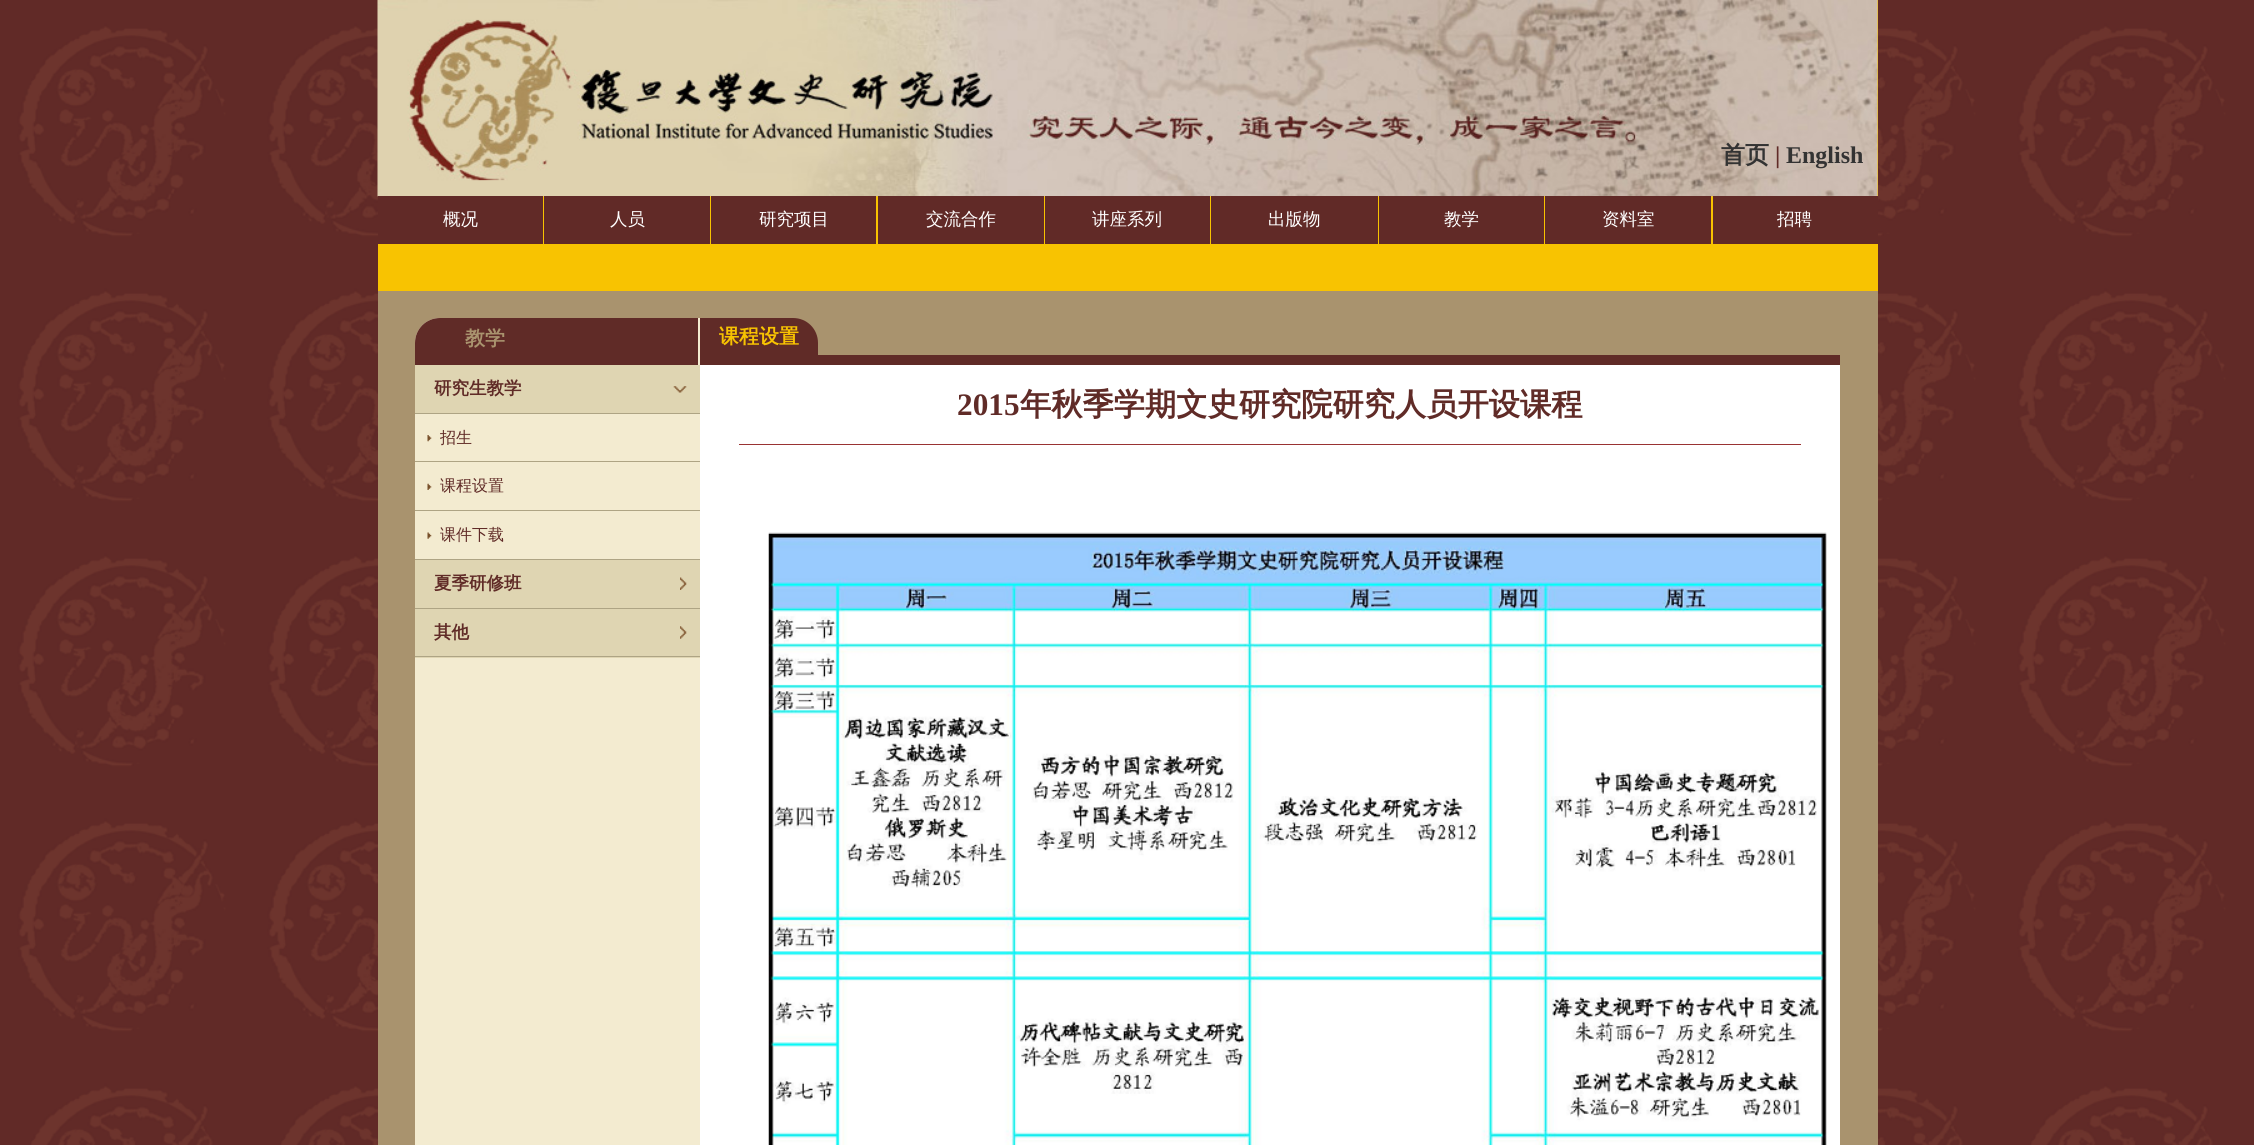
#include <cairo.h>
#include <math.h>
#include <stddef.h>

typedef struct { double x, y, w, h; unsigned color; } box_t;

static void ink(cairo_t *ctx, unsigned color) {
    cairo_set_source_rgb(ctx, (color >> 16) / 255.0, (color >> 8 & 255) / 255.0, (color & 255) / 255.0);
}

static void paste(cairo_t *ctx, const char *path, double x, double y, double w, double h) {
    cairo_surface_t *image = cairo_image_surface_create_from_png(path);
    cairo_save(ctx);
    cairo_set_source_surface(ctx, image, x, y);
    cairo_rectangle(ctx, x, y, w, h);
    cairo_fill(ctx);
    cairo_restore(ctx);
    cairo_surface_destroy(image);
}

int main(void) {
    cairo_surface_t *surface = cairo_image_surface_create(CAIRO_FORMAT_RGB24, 2254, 1145);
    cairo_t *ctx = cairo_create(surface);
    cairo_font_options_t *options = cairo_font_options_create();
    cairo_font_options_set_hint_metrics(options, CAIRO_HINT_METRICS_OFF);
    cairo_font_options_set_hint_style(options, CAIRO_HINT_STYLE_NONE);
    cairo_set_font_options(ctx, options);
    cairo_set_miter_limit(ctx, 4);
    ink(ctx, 0xFFFFFF);
    cairo_paint(ctx);
    paste(ctx, "media/1.png", 0, 0, 2254, 1145);
    ink(ctx, 0xF8C301);
    cairo_rectangle(ctx, 378, 0, 1500, 291);
    cairo_fill(ctx);
    paste(ctx, "media/2.png", 377, 0, 1501, 197);
    cairo_select_font_face(ctx, "WenQuanYi Zen Hei", CAIRO_FONT_SLANT_NORMAL, CAIRO_FONT_WEIGHT_BOLD);
    cairo_set_font_size(ctx, 24);
    ink(ctx, 0x333333);
    cairo_move_to(ctx, 1721, 163);
    cairo_show_text(ctx, "首页");
    cairo_select_font_face(ctx, "Liberation Serif", CAIRO_FONT_SLANT_NORMAL, CAIRO_FONT_WEIGHT_BOLD);
    ink(ctx, 0x602B27);
    cairo_move_to(ctx, 1775, 163);
    cairo_show_text(ctx, "|");
    ink(ctx, 0x333333);
    cairo_move_to(ctx, 1786, 163);
    cairo_show_text(ctx, "English");
    ink(ctx, 0x612A27);
    cairo_rectangle(ctx, 378, 196, 165, 48);
    cairo_fill(ctx);
    cairo_select_font_face(ctx, "WenQuanYi Zen Hei Medium", CAIRO_FONT_SLANT_NORMAL, CAIRO_FONT_WEIGHT_NORMAL);
    cairo_set_font_size(ctx, 17.5);
    ink(ctx, 0xFFFFFF);
    cairo_move_to(ctx, 443, 225);
    cairo_show_text(ctx, "概况");
    ink(ctx, 0x612A27);
    cairo_rectangle(ctx, 544, 196, 166, 48);
    cairo_fill(ctx);
    ink(ctx, 0xFFFFFF);
    cairo_move_to(ctx, 610, 225);
    cairo_show_text(ctx, "人员");
    ink(ctx, 0x612A27);
    cairo_rectangle(ctx, 711, 196, 165, 48);
    cairo_fill(ctx);
    ink(ctx, 0xFFFFFF);
    cairo_move_to(ctx, 759, 225);
    cairo_show_text(ctx, "研究项目");
    ink(ctx, 0x612A27);
    cairo_rectangle(ctx, 878, 196, 166, 48);
    cairo_fill(ctx);
    ink(ctx, 0xFFFFFF);
    cairo_move_to(ctx, 926, 225);
    cairo_show_text(ctx, "交流合作");
    ink(ctx, 0x612A27);
    cairo_rectangle(ctx, 1045, 196, 165, 48);
    cairo_fill(ctx);
    ink(ctx, 0xFFFFFF);
    cairo_move_to(ctx, 1092, 225);
    cairo_show_text(ctx, "讲座系列");
    ink(ctx, 0x612A27);
    cairo_rectangle(ctx, 1211, 196, 167, 48);
    cairo_fill(ctx);
    ink(ctx, 0xFFFFFF);
    cairo_move_to(ctx, 1268, 225);
    cairo_show_text(ctx, "出版物");
    ink(ctx, 0x612A27);
    cairo_rectangle(ctx, 1379, 196, 165, 48);
    cairo_fill(ctx);
    ink(ctx, 0xFFFFFF);
    cairo_move_to(ctx, 1444, 225);
    cairo_show_text(ctx, "教学");
    ink(ctx, 0x612A27);
    cairo_rectangle(ctx, 1545, 196, 166, 48);
    cairo_fill(ctx);
    ink(ctx, 0xFFFFFF);
    cairo_move_to(ctx, 1602, 225);
    cairo_show_text(ctx, "资料室");
    ink(ctx, 0x612A27);
    cairo_rectangle(ctx, 1713, 196, 165, 48);
    cairo_fill(ctx);
    ink(ctx, 0xFFFFFF);
    cairo_move_to(ctx, 1777, 225);
    cairo_show_text(ctx, "招聘");
    ink(ctx, 0xA9936E);
    cairo_rectangle(ctx, 378, 291, 1500, 854);
    cairo_fill(ctx);
    ink(ctx, 0xF3EBD0);
    cairo_new_path(ctx);
    cairo_move_to(ctx, 440, 318);
    cairo_line_to(ctx, 700, 318);
    cairo_line_to(ctx, 700, 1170);
    cairo_line_to(ctx, 415, 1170);
    cairo_line_to(ctx, 415, 343);
    cairo_curve_to(ctx, 415, 329, 426, 318, 440, 318);
    cairo_close_path(ctx);
    cairo_fill(ctx);
    ink(ctx, 0x602B27);
    cairo_new_path(ctx);
    cairo_move_to(ctx, 440, 318);
    cairo_line_to(ctx, 698, 318);
    cairo_line_to(ctx, 698, 365);
    cairo_line_to(ctx, 415, 365);
    cairo_line_to(ctx, 415, 343);
    cairo_curve_to(ctx, 415, 329, 426, 318, 440, 318);
    cairo_close_path(ctx);
    cairo_fill(ctx);
    cairo_select_font_face(ctx, "WenQuanYi Zen Hei", CAIRO_FONT_SLANT_NORMAL, CAIRO_FONT_WEIGHT_BOLD);
    cairo_set_font_size(ctx, 20);
    ink(ctx, 0xA9936E);
    cairo_move_to(ctx, 465, 345);
    cairo_show_text(ctx, "教学");
    ink(ctx, 0xDFD5B2);
    cairo_rectangle(ctx, 415, 365, 285, 293);
    cairo_fill(ctx);
    paste(ctx, "media/3.png", 673, 386, 14, 7);
    ink(ctx, 0xAEA484);
    cairo_rectangle(ctx, 415, 413, 285, 1);
    cairo_fill(ctx);
    cairo_set_font_size(ctx, 17.5);
    ink(ctx, 0x602B27);
    cairo_move_to(ctx, 434, 394);
    cairo_show_text(ctx, "研究生教学");
    ink(ctx, 0xF3EBD0);
    cairo_rectangle(ctx, 415, 414, 285, 145);
    cairo_fill(ctx);
    paste(ctx, "media/4.png", 427, 435, 5, 7);
    ink(ctx, 0xAEA484);
    cairo_rectangle(ctx, 415, 461, 285, 1);
    cairo_fill(ctx);
    cairo_select_font_face(ctx, "WenQuanYi Zen Hei Medium", CAIRO_FONT_SLANT_NORMAL, CAIRO_FONT_WEIGHT_NORMAL);
    cairo_set_font_size(ctx, 16);
    ink(ctx, 0x602B27);
    cairo_move_to(ctx, 440, 443);
    cairo_show_text(ctx, "招生");
    paste(ctx, "media/5.png", 427, 483, 5, 7);
    ink(ctx, 0xAEA484);
    cairo_rectangle(ctx, 415, 510, 285, 1);
    cairo_fill(ctx);
    ink(ctx, 0x602B27);
    cairo_move_to(ctx, 440, 491);
    cairo_show_text(ctx, "课程设置");
    paste(ctx, "media/6.png", 427, 532, 5, 7);
    ink(ctx, 0xAEA484);
    cairo_rectangle(ctx, 415, 559, 285, 1);
    cairo_fill(ctx);
    ink(ctx, 0x602B27);
    cairo_move_to(ctx, 440, 540);
    cairo_show_text(ctx, "课件下载");
    paste(ctx, "media/7.png", 680, 577, 7, 13);
    ink(ctx, 0xAEA484);
    cairo_rectangle(ctx, 415, 608, 285, 1);
    cairo_fill(ctx);
    cairo_select_font_face(ctx, "WenQuanYi Zen Hei", CAIRO_FONT_SLANT_NORMAL, CAIRO_FONT_WEIGHT_BOLD);
    cairo_set_font_size(ctx, 17.5);
    ink(ctx, 0x602B27);
    cairo_move_to(ctx, 434, 589);
    cairo_show_text(ctx, "夏季研修班");
    paste(ctx, "media/8.png", 680, 626, 7, 13);
    ink(ctx, 0xAEA484);
    cairo_rectangle(ctx, 415, 656, 285, 1);
    cairo_fill(ctx);
    ink(ctx, 0x602B27);
    cairo_move_to(ctx, 434, 638);
    cairo_show_text(ctx, "其他");
    cairo_new_path(ctx);
    cairo_move_to(ctx, 700, 318);
    cairo_line_to(ctx, 793, 318);
    cairo_curve_to(ctx, 807, 318, 818, 329, 818, 343);
    cairo_line_to(ctx, 818, 355);
    cairo_line_to(ctx, 700, 355);
    cairo_close_path(ctx);
    cairo_fill(ctx);
    cairo_set_font_size(ctx, 20);
    ink(ctx, 0xF8C301);
    cairo_move_to(ctx, 719, 343);
    cairo_show_text(ctx, "课程设置");
    {
        static const box_t items[] = {
            {700, 365, 1140, 780, 0xFFFFFF},
            {700, 355, 1140, 10, 0x602B27},
            {739, 444, 1062, 1, 0x993333},
        };
        for (size_t i = 0; i < sizeof items / sizeof *items; i++) {
            ink(ctx, items[i].color);
            cairo_rectangle(ctx, items[i].x, items[i].y, items[i].w, items[i].h);
            cairo_fill(ctx);
        }
    }
    cairo_select_font_face(ctx, "Liberation Serif", CAIRO_FONT_SLANT_NORMAL, CAIRO_FONT_WEIGHT_BOLD);
    cairo_set_font_size(ctx, 31.25);
    ink(ctx, 0x602B27);
    cairo_move_to(ctx, 957, 415);
    cairo_show_text(ctx, "2015");
    cairo_select_font_face(ctx, "WenQuanYi Zen Hei", CAIRO_FONT_SLANT_NORMAL, CAIRO_FONT_WEIGHT_BOLD);
    cairo_move_to(ctx, 1020, 415);
    cairo_show_text(ctx, "年秋季学期文史研究院研究人员开设课程");
    paste(ctx, "media/9.png", 768, 532, 1059, 613);
    cairo_surface_write_to_png(surface, "image.png");
    cairo_font_options_destroy(options);
    cairo_destroy(ctx);
    cairo_surface_destroy(surface);
    return 0;
}
